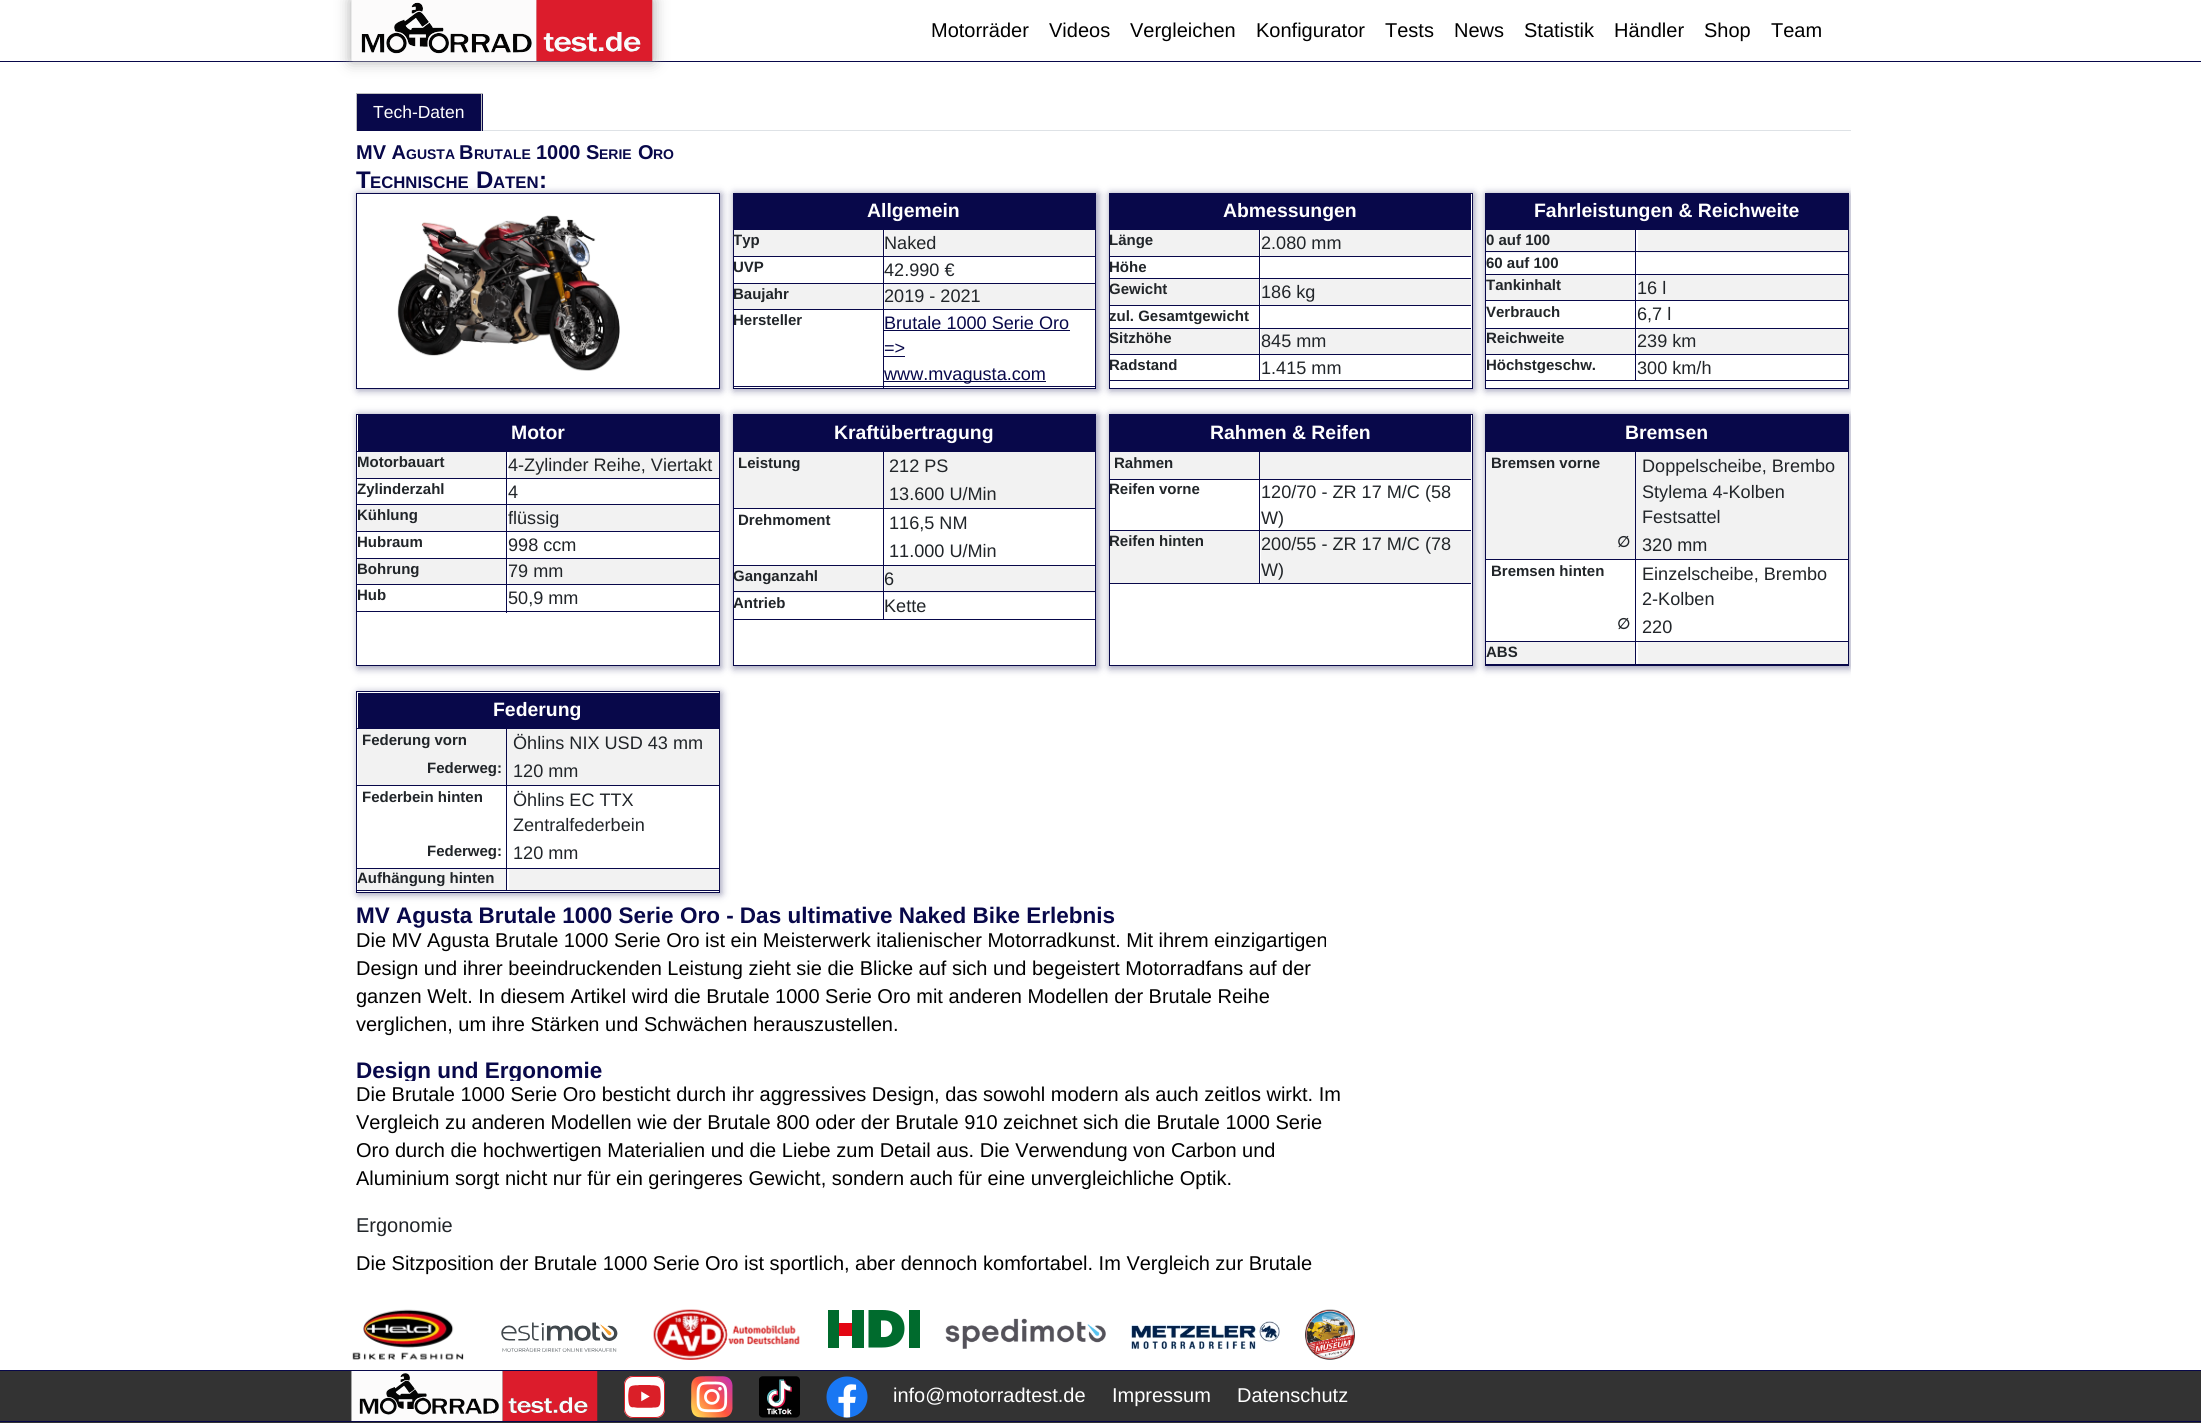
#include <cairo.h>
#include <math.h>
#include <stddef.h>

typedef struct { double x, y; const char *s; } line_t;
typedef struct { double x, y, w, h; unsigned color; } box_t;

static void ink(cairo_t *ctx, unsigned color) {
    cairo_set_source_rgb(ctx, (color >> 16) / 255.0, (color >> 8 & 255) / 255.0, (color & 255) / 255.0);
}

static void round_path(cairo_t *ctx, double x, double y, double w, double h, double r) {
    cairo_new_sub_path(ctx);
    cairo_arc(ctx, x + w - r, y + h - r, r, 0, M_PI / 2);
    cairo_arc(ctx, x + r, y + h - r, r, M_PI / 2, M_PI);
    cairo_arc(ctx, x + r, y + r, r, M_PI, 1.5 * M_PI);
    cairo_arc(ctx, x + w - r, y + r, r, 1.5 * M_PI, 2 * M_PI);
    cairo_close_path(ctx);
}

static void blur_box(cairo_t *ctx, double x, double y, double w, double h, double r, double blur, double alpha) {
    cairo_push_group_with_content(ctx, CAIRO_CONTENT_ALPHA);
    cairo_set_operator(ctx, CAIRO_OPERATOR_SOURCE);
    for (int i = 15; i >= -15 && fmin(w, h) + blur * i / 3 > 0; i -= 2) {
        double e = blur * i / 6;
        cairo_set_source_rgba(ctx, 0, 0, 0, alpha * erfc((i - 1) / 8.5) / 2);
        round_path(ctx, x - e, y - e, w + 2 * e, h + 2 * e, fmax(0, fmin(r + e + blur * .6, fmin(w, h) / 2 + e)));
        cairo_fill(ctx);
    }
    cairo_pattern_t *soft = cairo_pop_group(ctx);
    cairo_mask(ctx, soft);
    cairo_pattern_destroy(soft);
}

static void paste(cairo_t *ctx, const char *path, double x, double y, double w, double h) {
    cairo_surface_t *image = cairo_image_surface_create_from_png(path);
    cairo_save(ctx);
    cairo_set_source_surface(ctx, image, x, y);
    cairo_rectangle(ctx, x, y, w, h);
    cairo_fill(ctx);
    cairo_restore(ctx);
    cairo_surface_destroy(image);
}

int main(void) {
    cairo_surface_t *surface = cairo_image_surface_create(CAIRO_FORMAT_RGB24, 2201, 1424);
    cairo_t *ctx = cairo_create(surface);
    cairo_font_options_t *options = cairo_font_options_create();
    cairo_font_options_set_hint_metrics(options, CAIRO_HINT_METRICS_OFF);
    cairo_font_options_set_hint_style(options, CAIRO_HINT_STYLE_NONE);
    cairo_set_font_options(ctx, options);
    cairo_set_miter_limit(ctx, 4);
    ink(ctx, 0xFFFFFF);
    cairo_paint(ctx);
    ink(ctx, 0x08084A);
    cairo_rectangle(ctx, 0, 61, 2201, 1);
    cairo_fill(ctx);
    ink(ctx, 0xAAAAAA);
    blur_box(ctx, 351, 0, 302, 61, 0, 7.5, 1);
    paste(ctx, "media/1.png", 351, 0, 302, 61);
    cairo_select_font_face(ctx, "Liberation Sans", CAIRO_FONT_SLANT_NORMAL, CAIRO_FONT_WEIGHT_NORMAL);
    cairo_set_font_size(ctx, 20);
    ink(ctx, 0x000000);
    {
        static const line_t items[] = {
            {931, 37, "Motorräder"},
            {1049, 37, "Videos"},
            {1130, 37, "Vergleichen"},
            {1256, 37, "Konfigurator"},
            {1385, 37, "Tests"},
            {1454, 37, "News"},
            {1524, 37, "Statistik"},
            {1614, 37, "Händler"},
            {1704, 37, "Shop"},
            {1771, 37, "Team"},
        };
        for (size_t i = 0; i < sizeof items / sizeof *items; i++) {
            cairo_move_to(ctx, items[i].x, items[i].y);
            cairo_show_text(ctx, items[i].s);
        }
    }
    {
        static const box_t items[] = {
            {483, 130, 1368, 1, 0xDEE2E6},
            {357, 94, 126, 37, 0x08084A},
            {356, 93, 127, 1, 0xC0C0C0},
            {481, 93, 1, 38, 0xC0C0C0},
            {356, 93, 1, 38, 0xC0C0C0},
        };
        for (size_t i = 0; i < sizeof items / sizeof *items; i++) {
            ink(ctx, items[i].color);
            cairo_rectangle(ctx, items[i].x, items[i].y, items[i].w, items[i].h);
            cairo_fill(ctx);
        }
    }
    cairo_set_font_size(ctx, 17.5);
    ink(ctx, 0xFFFFFF);
    cairo_move_to(ctx, 373, 118);
    cairo_show_text(ctx, "Tech-Daten");
    cairo_select_font_face(ctx, "Liberation Sans", CAIRO_FONT_SLANT_NORMAL, CAIRO_FONT_WEIGHT_BOLD);
    cairo_set_font_size(ctx, 20);
    ink(ctx, 0x08084A);
    cairo_move_to(ctx, 356, 159);
    cairo_show_text(ctx, "MV A");
    cairo_set_font_size(ctx, 14);
    cairo_move_to(ctx, 406, 159);
    cairo_show_text(ctx, "GUSTA");
    cairo_set_font_size(ctx, 20);
    cairo_move_to(ctx, 459, 159);
    cairo_show_text(ctx, "B");
    cairo_set_font_size(ctx, 14);
    cairo_move_to(ctx, 474, 159);
    cairo_show_text(ctx, "RUTALE");
    cairo_set_font_size(ctx, 20);
    cairo_move_to(ctx, 536, 159);
    cairo_show_text(ctx, "1000 S");
    cairo_set_font_size(ctx, 14);
    cairo_move_to(ctx, 599, 159);
    cairo_show_text(ctx, "ERIE");
    cairo_set_font_size(ctx, 20);
    cairo_move_to(ctx, 638, 159);
    cairo_show_text(ctx, "O");
    cairo_set_font_size(ctx, 14);
    cairo_move_to(ctx, 653, 159);
    cairo_show_text(ctx, "RO");
    ink(ctx, 0x08084A);
    blur_box(ctx, 358, 194, 363, 196, 0, 4, 0.45);
    cairo_set_font_size(ctx, 24);
    ink(ctx, 0x08084A);
    cairo_move_to(ctx, 356, 188);
    cairo_show_text(ctx, "T");
    cairo_set_font_size(ctx, 16.75);
    cairo_move_to(ctx, 370, 188);
    cairo_show_text(ctx, "ECHNISCHE");
    cairo_set_font_size(ctx, 24);
    cairo_move_to(ctx, 476, 188);
    cairo_show_text(ctx, "D");
    cairo_set_font_size(ctx, 16.75);
    cairo_move_to(ctx, 493, 188);
    cairo_show_text(ctx, "ATEN");
    cairo_set_font_size(ctx, 24);
    cairo_move_to(ctx, 539, 188);
    cairo_show_text(ctx, ":");
    ink(ctx, 0xFFFFFF);
    cairo_rectangle(ctx, 357, 194, 362, 194);
    cairo_fill(ctx);
    paste(ctx, "media/2.png", 397, 215, 223, 156);
    cairo_rectangle(ctx, 356.5, 193.5, 363, 195);
    ink(ctx, 0x08084A);
    cairo_set_line_width(ctx, 1);
    cairo_stroke(ctx);
    ink(ctx, 0x08084A);
    blur_box(ctx, 734, 194, 364, 196, 0, 4, 0.45);
    ink(ctx, 0xFFFFFF);
    cairo_rectangle(ctx, 734, 230, 361, 158);
    cairo_fill(ctx);
    cairo_rectangle(ctx, 733.5, 193.5, 362, 195);
    ink(ctx, 0x08084A);
    cairo_stroke(ctx);
    cairo_rectangle(ctx, 734, 194, 361, 35);
    cairo_fill(ctx);
    cairo_set_font_size(ctx, 19.4);
    ink(ctx, 0xFFFFFF);
    cairo_move_to(ctx, 867, 217);
    cairo_show_text(ctx, "Allgemein");
    ink(ctx, 0x08084A);
    cairo_rectangle(ctx, 733, 229, 362, 1);
    cairo_fill(ctx);
    ink(ctx, 0xF2F2F2);
    cairo_rectangle(ctx, 734, 230, 149, 26);
    cairo_fill(ctx);
    cairo_set_font_size(ctx, 15);
    ink(ctx, 0x212529);
    cairo_move_to(ctx, 733, 245);
    cairo_show_text(ctx, "Typ");
    ink(ctx, 0xF2F2F2);
    cairo_rectangle(ctx, 885, 230, 210, 26);
    cairo_fill(ctx);
    cairo_select_font_face(ctx, "Liberation Sans", CAIRO_FONT_SLANT_NORMAL, CAIRO_FONT_WEIGHT_NORMAL);
    cairo_set_font_size(ctx, 18.1);
    ink(ctx, 0x212529);
    cairo_move_to(ctx, 884, 249);
    cairo_show_text(ctx, "Naked");
    ink(ctx, 0x08084A);
    cairo_rectangle(ctx, 733, 256, 362, 1);
    cairo_fill(ctx);
    cairo_select_font_face(ctx, "Liberation Sans", CAIRO_FONT_SLANT_NORMAL, CAIRO_FONT_WEIGHT_BOLD);
    cairo_set_font_size(ctx, 15);
    ink(ctx, 0x212529);
    cairo_move_to(ctx, 733, 272);
    cairo_show_text(ctx, "UVP");
    cairo_select_font_face(ctx, "Liberation Sans", CAIRO_FONT_SLANT_NORMAL, CAIRO_FONT_WEIGHT_NORMAL);
    cairo_set_font_size(ctx, 18.1);
    cairo_move_to(ctx, 884, 276);
    cairo_show_text(ctx, "42.990 €");
    ink(ctx, 0x08084A);
    cairo_rectangle(ctx, 733, 283, 362, 1);
    cairo_fill(ctx);
    ink(ctx, 0xF2F2F2);
    cairo_rectangle(ctx, 734, 284, 149, 25);
    cairo_fill(ctx);
    cairo_select_font_face(ctx, "Liberation Sans", CAIRO_FONT_SLANT_NORMAL, CAIRO_FONT_WEIGHT_BOLD);
    cairo_set_font_size(ctx, 15);
    ink(ctx, 0x212529);
    cairo_move_to(ctx, 733, 299);
    cairo_show_text(ctx, "Baujahr");
    ink(ctx, 0xF2F2F2);
    cairo_rectangle(ctx, 885, 284, 210, 25);
    cairo_fill(ctx);
    cairo_select_font_face(ctx, "Liberation Sans", CAIRO_FONT_SLANT_NORMAL, CAIRO_FONT_WEIGHT_NORMAL);
    cairo_set_font_size(ctx, 18.1);
    ink(ctx, 0x212529);
    cairo_move_to(ctx, 884, 302);
    cairo_show_text(ctx, "2019 - 2021");
    ink(ctx, 0x08084A);
    cairo_rectangle(ctx, 733, 309, 362, 1);
    cairo_fill(ctx);
    cairo_rectangle(ctx, 733, 386, 362, 1);
    cairo_fill(ctx);
    cairo_select_font_face(ctx, "Liberation Sans", CAIRO_FONT_SLANT_NORMAL, CAIRO_FONT_WEIGHT_BOLD);
    cairo_set_font_size(ctx, 15);
    ink(ctx, 0x212529);
    cairo_move_to(ctx, 733, 325);
    cairo_show_text(ctx, "Hersteller");
    ink(ctx, 0x08084A);
    cairo_rectangle(ctx, 883, 229, 1, 159);
    cairo_fill(ctx);
    cairo_select_font_face(ctx, "Liberation Sans", CAIRO_FONT_SLANT_NORMAL, CAIRO_FONT_WEIGHT_NORMAL);
    cairo_set_font_size(ctx, 18.1);
    cairo_move_to(ctx, 884, 329);
    cairo_show_text(ctx, "Brutale 1000 Serie Oro");
    cairo_rectangle(ctx, 884, 330, 186, 1);
    cairo_fill(ctx);
    cairo_move_to(ctx, 884, 354);
    cairo_show_text(ctx, "=>");
    cairo_rectangle(ctx, 884, 356, 21, 1);
    cairo_fill(ctx);
    cairo_rectangle(ctx, 884, 381, 162, 1);
    cairo_fill(ctx);
    cairo_move_to(ctx, 884, 380);
    cairo_show_text(ctx, "www.mvagusta.com");
    ink(ctx, 0x08084A);
    blur_box(ctx, 1110, 194, 364, 196, 0, 4, 0.45);
    ink(ctx, 0xFFFFFF);
    cairo_rectangle(ctx, 1109.5, 193.5, 363, 195);
    cairo_fill_preserve(ctx);
    ink(ctx, 0x08084A);
    cairo_stroke(ctx);
    cairo_rectangle(ctx, 1110, 194, 361, 35);
    cairo_fill(ctx);
    cairo_select_font_face(ctx, "Liberation Sans", CAIRO_FONT_SLANT_NORMAL, CAIRO_FONT_WEIGHT_BOLD);
    cairo_set_font_size(ctx, 19.4);
    ink(ctx, 0xFFFFFF);
    cairo_move_to(ctx, 1223, 217);
    cairo_show_text(ctx, "Abmessungen");
    ink(ctx, 0x08084A);
    cairo_rectangle(ctx, 1109, 229, 362, 1);
    cairo_fill(ctx);
    ink(ctx, 0xF2F2F2);
    cairo_rectangle(ctx, 1110, 230, 149, 26);
    cairo_fill(ctx);
    cairo_set_font_size(ctx, 15);
    ink(ctx, 0x212529);
    cairo_move_to(ctx, 1109, 245);
    cairo_show_text(ctx, "Länge");
    ink(ctx, 0xF2F2F2);
    cairo_rectangle(ctx, 1261, 230, 210, 26);
    cairo_fill(ctx);
    cairo_select_font_face(ctx, "Liberation Sans", CAIRO_FONT_SLANT_NORMAL, CAIRO_FONT_WEIGHT_NORMAL);
    cairo_set_font_size(ctx, 18.1);
    ink(ctx, 0x212529);
    cairo_move_to(ctx, 1261, 249);
    cairo_show_text(ctx, "2.080 mm");
    ink(ctx, 0x08084A);
    cairo_rectangle(ctx, 1109, 256, 362, 1);
    cairo_fill(ctx);
    cairo_select_font_face(ctx, "Liberation Sans", CAIRO_FONT_SLANT_NORMAL, CAIRO_FONT_WEIGHT_BOLD);
    cairo_set_font_size(ctx, 15);
    ink(ctx, 0x212529);
    cairo_move_to(ctx, 1109, 272);
    cairo_show_text(ctx, "Höhe");
    ink(ctx, 0x08084A);
    cairo_rectangle(ctx, 1109, 278, 362, 1);
    cairo_fill(ctx);
    ink(ctx, 0xF2F2F2);
    cairo_rectangle(ctx, 1110, 279, 149, 26);
    cairo_fill(ctx);
    ink(ctx, 0x212529);
    cairo_move_to(ctx, 1109, 294);
    cairo_show_text(ctx, "Gewicht");
    ink(ctx, 0xF2F2F2);
    cairo_rectangle(ctx, 1261, 279, 210, 26);
    cairo_fill(ctx);
    cairo_select_font_face(ctx, "Liberation Sans", CAIRO_FONT_SLANT_NORMAL, CAIRO_FONT_WEIGHT_NORMAL);
    cairo_set_font_size(ctx, 18.1);
    ink(ctx, 0x212529);
    cairo_move_to(ctx, 1261, 298);
    cairo_show_text(ctx, "186 kg");
    ink(ctx, 0x08084A);
    cairo_rectangle(ctx, 1109, 305, 362, 1);
    cairo_fill(ctx);
    cairo_select_font_face(ctx, "Liberation Sans", CAIRO_FONT_SLANT_NORMAL, CAIRO_FONT_WEIGHT_BOLD);
    cairo_set_font_size(ctx, 15);
    ink(ctx, 0x212529);
    cairo_move_to(ctx, 1109, 321);
    cairo_show_text(ctx, "zul. Gesamtgewicht");
    ink(ctx, 0x08084A);
    cairo_rectangle(ctx, 1109, 328, 362, 1);
    cairo_fill(ctx);
    ink(ctx, 0xF2F2F2);
    cairo_rectangle(ctx, 1110, 329, 149, 25);
    cairo_fill(ctx);
    ink(ctx, 0x212529);
    cairo_move_to(ctx, 1109, 343);
    cairo_show_text(ctx, "Sitzhöhe");
    ink(ctx, 0xF2F2F2);
    cairo_rectangle(ctx, 1261, 329, 210, 25);
    cairo_fill(ctx);
    cairo_select_font_face(ctx, "Liberation Sans", CAIRO_FONT_SLANT_NORMAL, CAIRO_FONT_WEIGHT_NORMAL);
    cairo_set_font_size(ctx, 18.1);
    ink(ctx, 0x212529);
    cairo_move_to(ctx, 1261, 347);
    cairo_show_text(ctx, "845 mm");
    ink(ctx, 0x08084A);
    cairo_rectangle(ctx, 1109, 354, 362, 1);
    cairo_fill(ctx);
    cairo_rectangle(ctx, 1109, 380, 362, 1);
    cairo_fill(ctx);
    cairo_select_font_face(ctx, "Liberation Sans", CAIRO_FONT_SLANT_NORMAL, CAIRO_FONT_WEIGHT_BOLD);
    cairo_set_font_size(ctx, 15);
    ink(ctx, 0x212529);
    cairo_move_to(ctx, 1109, 370);
    cairo_show_text(ctx, "Radstand");
    ink(ctx, 0x08084A);
    cairo_rectangle(ctx, 1259, 229, 1, 152);
    cairo_fill(ctx);
    cairo_select_font_face(ctx, "Liberation Sans", CAIRO_FONT_SLANT_NORMAL, CAIRO_FONT_WEIGHT_NORMAL);
    cairo_set_font_size(ctx, 18.1);
    ink(ctx, 0x212529);
    cairo_move_to(ctx, 1261, 374);
    cairo_show_text(ctx, "1.415 mm");
    cairo_save(ctx);
    cairo_rectangle(ctx, 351, 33, 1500, 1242);
    cairo_clip(ctx);
    ink(ctx, 0x08084A);
    blur_box(ctx, 1486, 194, 364, 196, 0, 4, 0.45);
    cairo_restore(ctx);
    ink(ctx, 0xFFFFFF);
    cairo_rectangle(ctx, 1486, 230, 362, 158);
    cairo_fill(ctx);
    cairo_rectangle(ctx, 1485.5, 193.5, 363, 195);
    ink(ctx, 0x08084A);
    cairo_stroke(ctx);
    cairo_rectangle(ctx, 1486, 194, 362, 35);
    cairo_fill(ctx);
    cairo_select_font_face(ctx, "Liberation Sans", CAIRO_FONT_SLANT_NORMAL, CAIRO_FONT_WEIGHT_BOLD);
    cairo_set_font_size(ctx, 19.4);
    ink(ctx, 0xFFFFFF);
    cairo_move_to(ctx, 1534, 217);
    cairo_show_text(ctx, "Fahrleistungen & Reichweite");
    ink(ctx, 0x08084A);
    cairo_rectangle(ctx, 1485, 229, 363, 1);
    cairo_fill(ctx);
    ink(ctx, 0xF2F2F2);
    cairo_rectangle(ctx, 1486, 230, 149, 23);
    cairo_fill(ctx);
    cairo_set_font_size(ctx, 15);
    ink(ctx, 0x212529);
    cairo_move_to(ctx, 1486, 245);
    cairo_show_text(ctx, "0 auf 100");
    ink(ctx, 0xF2F2F2);
    cairo_rectangle(ctx, 1638, 230, 210, 23);
    cairo_fill(ctx);
    ink(ctx, 0x08084A);
    cairo_rectangle(ctx, 1485, 251, 363, 1);
    cairo_fill(ctx);
    ink(ctx, 0x212529);
    cairo_move_to(ctx, 1486, 268);
    cairo_show_text(ctx, "60 auf 100");
    ink(ctx, 0x08084A);
    cairo_rectangle(ctx, 1485, 274, 363, 1);
    cairo_fill(ctx);
    ink(ctx, 0xF2F2F2);
    cairo_rectangle(ctx, 1486, 275, 149, 25);
    cairo_fill(ctx);
    ink(ctx, 0x212529);
    cairo_move_to(ctx, 1486, 290);
    cairo_show_text(ctx, "Tankinhalt");
    ink(ctx, 0xF2F2F2);
    cairo_rectangle(ctx, 1638, 275, 210, 25);
    cairo_fill(ctx);
    cairo_select_font_face(ctx, "Liberation Sans", CAIRO_FONT_SLANT_NORMAL, CAIRO_FONT_WEIGHT_NORMAL);
    cairo_set_font_size(ctx, 18.1);
    ink(ctx, 0x212529);
    cairo_move_to(ctx, 1637, 294);
    cairo_show_text(ctx, "16 l");
    ink(ctx, 0x08084A);
    cairo_rectangle(ctx, 1485, 300, 363, 1);
    cairo_fill(ctx);
    cairo_select_font_face(ctx, "Liberation Sans", CAIRO_FONT_SLANT_NORMAL, CAIRO_FONT_WEIGHT_BOLD);
    cairo_set_font_size(ctx, 15);
    ink(ctx, 0x212529);
    cairo_move_to(ctx, 1486, 317);
    cairo_show_text(ctx, "Verbrauch");
    cairo_select_font_face(ctx, "Liberation Sans", CAIRO_FONT_SLANT_NORMAL, CAIRO_FONT_WEIGHT_NORMAL);
    cairo_set_font_size(ctx, 18.1);
    cairo_move_to(ctx, 1637, 320);
    cairo_show_text(ctx, "6,7 l");
    ink(ctx, 0x08084A);
    cairo_rectangle(ctx, 1485, 328, 363, 1);
    cairo_fill(ctx);
    ink(ctx, 0xF2F2F2);
    cairo_rectangle(ctx, 1486, 329, 149, 25);
    cairo_fill(ctx);
    cairo_select_font_face(ctx, "Liberation Sans", CAIRO_FONT_SLANT_NORMAL, CAIRO_FONT_WEIGHT_BOLD);
    cairo_set_font_size(ctx, 15);
    ink(ctx, 0x212529);
    cairo_move_to(ctx, 1486, 343);
    cairo_show_text(ctx, "Reichweite");
    ink(ctx, 0xF2F2F2);
    cairo_rectangle(ctx, 1638, 329, 210, 25);
    cairo_fill(ctx);
    cairo_select_font_face(ctx, "Liberation Sans", CAIRO_FONT_SLANT_NORMAL, CAIRO_FONT_WEIGHT_NORMAL);
    cairo_set_font_size(ctx, 18.1);
    ink(ctx, 0x212529);
    cairo_move_to(ctx, 1637, 347);
    cairo_show_text(ctx, "239 km");
    ink(ctx, 0x08084A);
    cairo_rectangle(ctx, 1485, 354, 363, 1);
    cairo_fill(ctx);
    cairo_rectangle(ctx, 1485, 380, 363, 1);
    cairo_fill(ctx);
    cairo_select_font_face(ctx, "Liberation Sans", CAIRO_FONT_SLANT_NORMAL, CAIRO_FONT_WEIGHT_BOLD);
    cairo_set_font_size(ctx, 15);
    ink(ctx, 0x212529);
    cairo_move_to(ctx, 1486, 370);
    cairo_show_text(ctx, "Höchstgeschw.");
    ink(ctx, 0x08084A);
    cairo_rectangle(ctx, 1635, 229, 1, 152);
    cairo_fill(ctx);
    cairo_select_font_face(ctx, "Liberation Sans", CAIRO_FONT_SLANT_NORMAL, CAIRO_FONT_WEIGHT_NORMAL);
    cairo_set_font_size(ctx, 18.1);
    ink(ctx, 0x212529);
    cairo_move_to(ctx, 1637, 374);
    cairo_show_text(ctx, "300 km/h");
    ink(ctx, 0x08084A);
    blur_box(ctx, 358, 415, 363, 253, 0, 4, 0.45);
    ink(ctx, 0xFFFFFF);
    cairo_rectangle(ctx, 356.5, 414.5, 363, 251);
    cairo_fill_preserve(ctx);
    ink(ctx, 0x08084A);
    cairo_stroke(ctx);
    cairo_rectangle(ctx, 358, 415, 361, 36);
    cairo_fill(ctx);
    cairo_select_font_face(ctx, "Liberation Sans", CAIRO_FONT_SLANT_NORMAL, CAIRO_FONT_WEIGHT_BOLD);
    cairo_set_font_size(ctx, 19.4);
    ink(ctx, 0xFFFFFF);
    cairo_move_to(ctx, 511, 439);
    cairo_show_text(ctx, "Motor");
    ink(ctx, 0x08084A);
    cairo_rectangle(ctx, 356, 451, 363, 1);
    cairo_fill(ctx);
    ink(ctx, 0xF2F2F2);
    cairo_rectangle(ctx, 358, 452, 148, 26);
    cairo_fill(ctx);
    cairo_set_font_size(ctx, 15);
    ink(ctx, 0x212529);
    cairo_move_to(ctx, 357, 467);
    cairo_show_text(ctx, "Motorbauart");
    ink(ctx, 0xF2F2F2);
    cairo_rectangle(ctx, 509, 452, 210, 26);
    cairo_fill(ctx);
    cairo_select_font_face(ctx, "Liberation Sans", CAIRO_FONT_SLANT_NORMAL, CAIRO_FONT_WEIGHT_NORMAL);
    cairo_set_font_size(ctx, 18.1);
    ink(ctx, 0x212529);
    cairo_move_to(ctx, 508, 471);
    cairo_show_text(ctx, "4-Zylinder Reihe, Viertakt");
    ink(ctx, 0x08084A);
    cairo_rectangle(ctx, 356, 478, 363, 1);
    cairo_fill(ctx);
    cairo_select_font_face(ctx, "Liberation Sans", CAIRO_FONT_SLANT_NORMAL, CAIRO_FONT_WEIGHT_BOLD);
    cairo_set_font_size(ctx, 15);
    ink(ctx, 0x212529);
    cairo_move_to(ctx, 357, 494);
    cairo_show_text(ctx, "Zylinderzahl");
    cairo_select_font_face(ctx, "Liberation Sans", CAIRO_FONT_SLANT_NORMAL, CAIRO_FONT_WEIGHT_NORMAL);
    cairo_set_font_size(ctx, 18.1);
    cairo_move_to(ctx, 508, 498);
    cairo_show_text(ctx, "4");
    ink(ctx, 0x08084A);
    cairo_rectangle(ctx, 356, 504, 363, 1);
    cairo_fill(ctx);
    ink(ctx, 0xF2F2F2);
    cairo_rectangle(ctx, 358, 505, 148, 26);
    cairo_fill(ctx);
    cairo_select_font_face(ctx, "Liberation Sans", CAIRO_FONT_SLANT_NORMAL, CAIRO_FONT_WEIGHT_BOLD);
    cairo_set_font_size(ctx, 15);
    ink(ctx, 0x212529);
    cairo_move_to(ctx, 357, 520);
    cairo_show_text(ctx, "Kühlung");
    ink(ctx, 0xF2F2F2);
    cairo_rectangle(ctx, 509, 505, 210, 26);
    cairo_fill(ctx);
    cairo_select_font_face(ctx, "Liberation Sans", CAIRO_FONT_SLANT_NORMAL, CAIRO_FONT_WEIGHT_NORMAL);
    cairo_set_font_size(ctx, 18.1);
    ink(ctx, 0x212529);
    cairo_move_to(ctx, 508, 524);
    cairo_show_text(ctx, "flüssig");
    ink(ctx, 0x08084A);
    cairo_rectangle(ctx, 356, 531, 363, 1);
    cairo_fill(ctx);
    cairo_select_font_face(ctx, "Liberation Sans", CAIRO_FONT_SLANT_NORMAL, CAIRO_FONT_WEIGHT_BOLD);
    cairo_set_font_size(ctx, 15);
    ink(ctx, 0x212529);
    cairo_move_to(ctx, 357, 547);
    cairo_show_text(ctx, "Hubraum");
    cairo_select_font_face(ctx, "Liberation Sans", CAIRO_FONT_SLANT_NORMAL, CAIRO_FONT_WEIGHT_NORMAL);
    cairo_set_font_size(ctx, 18.1);
    cairo_move_to(ctx, 508, 551);
    cairo_show_text(ctx, "998 ccm");
    ink(ctx, 0x08084A);
    cairo_rectangle(ctx, 356, 558, 363, 1);
    cairo_fill(ctx);
    ink(ctx, 0xF2F2F2);
    cairo_rectangle(ctx, 358, 559, 148, 25);
    cairo_fill(ctx);
    cairo_select_font_face(ctx, "Liberation Sans", CAIRO_FONT_SLANT_NORMAL, CAIRO_FONT_WEIGHT_BOLD);
    cairo_set_font_size(ctx, 15);
    ink(ctx, 0x212529);
    cairo_move_to(ctx, 357, 574);
    cairo_show_text(ctx, "Bohrung");
    ink(ctx, 0xF2F2F2);
    cairo_rectangle(ctx, 509, 559, 210, 25);
    cairo_fill(ctx);
    cairo_select_font_face(ctx, "Liberation Sans", CAIRO_FONT_SLANT_NORMAL, CAIRO_FONT_WEIGHT_NORMAL);
    cairo_set_font_size(ctx, 18.1);
    ink(ctx, 0x212529);
    cairo_move_to(ctx, 508, 577);
    cairo_show_text(ctx, "79 mm");
    ink(ctx, 0x08084A);
    cairo_rectangle(ctx, 356, 584, 363, 1);
    cairo_fill(ctx);
    cairo_rectangle(ctx, 356, 611, 363, 1);
    cairo_fill(ctx);
    cairo_select_font_face(ctx, "Liberation Sans", CAIRO_FONT_SLANT_NORMAL, CAIRO_FONT_WEIGHT_BOLD);
    cairo_set_font_size(ctx, 15);
    ink(ctx, 0x212529);
    cairo_move_to(ctx, 357, 600);
    cairo_show_text(ctx, "Hub");
    ink(ctx, 0x08084A);
    cairo_rectangle(ctx, 506, 451, 1, 162);
    cairo_fill(ctx);
    cairo_select_font_face(ctx, "Liberation Sans", CAIRO_FONT_SLANT_NORMAL, CAIRO_FONT_WEIGHT_NORMAL);
    cairo_set_font_size(ctx, 18.1);
    ink(ctx, 0x212529);
    cairo_move_to(ctx, 508, 604);
    cairo_show_text(ctx, "50,9 mm");
    cairo_save(ctx);
    cairo_set_fill_rule(ctx, CAIRO_FILL_RULE_EVEN_ODD);
    cairo_new_path(ctx);
    cairo_move_to(ctx, 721, 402);
    cairo_line_to(ctx, 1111, 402);
    cairo_line_to(ctx, 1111, 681);
    cairo_line_to(ctx, 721, 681);
    cairo_close_path(ctx);
    cairo_move_to(ctx, 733, 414);
    cairo_line_to(ctx, 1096, 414);
    cairo_line_to(ctx, 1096, 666);
    cairo_line_to(ctx, 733, 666);
    cairo_close_path(ctx);
    cairo_clip(ctx);
    ink(ctx, 0x08084A);
    blur_box(ctx, 734, 415, 364, 253, 0, 4, 0.45);
    cairo_restore(ctx);
    cairo_rectangle(ctx, 733.5, 414.5, 362, 251);
    ink(ctx, 0x08084A);
    cairo_stroke(ctx);
    cairo_rectangle(ctx, 734, 415, 361, 36);
    cairo_fill(ctx);
    cairo_select_font_face(ctx, "Liberation Sans", CAIRO_FONT_SLANT_NORMAL, CAIRO_FONT_WEIGHT_BOLD);
    cairo_set_font_size(ctx, 19.4);
    ink(ctx, 0xFFFFFF);
    cairo_move_to(ctx, 834, 439);
    cairo_show_text(ctx, "Kraftübertragung");
    {
        static const box_t items[] = {
            {734, 452, 361, 56, 0xF2F2F2},
            {883, 451, 1, 58, 0x08084A},
            {733, 451, 362, 1, 0x08084A},
        };
        for (size_t i = 0; i < sizeof items / sizeof *items; i++) {
            ink(ctx, items[i].color);
            cairo_rectangle(ctx, items[i].x, items[i].y, items[i].w, items[i].h);
            cairo_fill(ctx);
        }
    }
    cairo_set_font_size(ctx, 15);
    ink(ctx, 0x212529);
    cairo_move_to(ctx, 738, 468);
    cairo_show_text(ctx, "Leistung");
    cairo_select_font_face(ctx, "Liberation Sans", CAIRO_FONT_SLANT_NORMAL, CAIRO_FONT_WEIGHT_NORMAL);
    cairo_set_font_size(ctx, 18.1);
    cairo_move_to(ctx, 889, 472);
    cairo_show_text(ctx, "212 PS");
    cairo_move_to(ctx, 889, 500);
    cairo_show_text(ctx, "13.600 U/Min");
    ink(ctx, 0x08084A);
    cairo_rectangle(ctx, 733, 508, 362, 1);
    cairo_fill(ctx);
    cairo_select_font_face(ctx, "Liberation Sans", CAIRO_FONT_SLANT_NORMAL, CAIRO_FONT_WEIGHT_BOLD);
    cairo_set_font_size(ctx, 15);
    ink(ctx, 0x212529);
    cairo_move_to(ctx, 738, 525);
    cairo_show_text(ctx, "Drehmoment");
    cairo_select_font_face(ctx, "Liberation Sans", CAIRO_FONT_SLANT_NORMAL, CAIRO_FONT_WEIGHT_NORMAL);
    cairo_set_font_size(ctx, 18.1);
    cairo_move_to(ctx, 889, 529);
    cairo_show_text(ctx, "116,5 NM");
    ink(ctx, 0x08084A);
    cairo_rectangle(ctx, 883, 509, 1, 56);
    cairo_fill(ctx);
    ink(ctx, 0x212529);
    cairo_move_to(ctx, 889, 557);
    cairo_show_text(ctx, "11.000 U/Min");
    ink(ctx, 0x08084A);
    cairo_rectangle(ctx, 733, 565, 362, 1);
    cairo_fill(ctx);
    ink(ctx, 0xF2F2F2);
    cairo_rectangle(ctx, 734, 566, 149, 27);
    cairo_fill(ctx);
    cairo_select_font_face(ctx, "Liberation Sans", CAIRO_FONT_SLANT_NORMAL, CAIRO_FONT_WEIGHT_BOLD);
    cairo_set_font_size(ctx, 15);
    ink(ctx, 0x212529);
    cairo_move_to(ctx, 733, 581);
    cairo_show_text(ctx, "Ganganzahl");
    ink(ctx, 0xF2F2F2);
    cairo_rectangle(ctx, 885, 566, 210, 27);
    cairo_fill(ctx);
    cairo_select_font_face(ctx, "Liberation Sans", CAIRO_FONT_SLANT_NORMAL, CAIRO_FONT_WEIGHT_NORMAL);
    cairo_set_font_size(ctx, 18.1);
    ink(ctx, 0x212529);
    cairo_move_to(ctx, 884, 585);
    cairo_show_text(ctx, "6");
    ink(ctx, 0x08084A);
    cairo_rectangle(ctx, 733, 591, 362, 1);
    cairo_fill(ctx);
    cairo_rectangle(ctx, 733, 619, 362, 1);
    cairo_fill(ctx);
    cairo_select_font_face(ctx, "Liberation Sans", CAIRO_FONT_SLANT_NORMAL, CAIRO_FONT_WEIGHT_BOLD);
    cairo_set_font_size(ctx, 15);
    ink(ctx, 0x212529);
    cairo_move_to(ctx, 733, 608);
    cairo_show_text(ctx, "Antrieb");
    ink(ctx, 0x08084A);
    cairo_rectangle(ctx, 883, 565, 1, 55);
    cairo_fill(ctx);
    cairo_select_font_face(ctx, "Liberation Sans", CAIRO_FONT_SLANT_NORMAL, CAIRO_FONT_WEIGHT_NORMAL);
    cairo_set_font_size(ctx, 18.1);
    ink(ctx, 0x212529);
    cairo_move_to(ctx, 884, 612);
    cairo_show_text(ctx, "Kette");
    ink(ctx, 0x08084A);
    blur_box(ctx, 1110, 415, 364, 253, 0, 4, 0.45);
    ink(ctx, 0xFFFFFF);
    cairo_rectangle(ctx, 1109.5, 414.5, 363, 251);
    cairo_fill_preserve(ctx);
    ink(ctx, 0x08084A);
    cairo_stroke(ctx);
    cairo_rectangle(ctx, 1110, 415, 361, 36);
    cairo_fill(ctx);
    cairo_select_font_face(ctx, "Liberation Sans", CAIRO_FONT_SLANT_NORMAL, CAIRO_FONT_WEIGHT_BOLD);
    cairo_set_font_size(ctx, 19.4);
    ink(ctx, 0xFFFFFF);
    cairo_move_to(ctx, 1210, 439);
    cairo_show_text(ctx, "Rahmen & Reifen");
    {
        static const box_t items[] = {
            {1110, 452, 361, 27, 0xF2F2F2},
            {1259, 451, 1, 28, 0x08084A},
            {1109, 451, 362, 1, 0x08084A},
        };
        for (size_t i = 0; i < sizeof items / sizeof *items; i++) {
            ink(ctx, items[i].color);
            cairo_rectangle(ctx, items[i].x, items[i].y, items[i].w, items[i].h);
            cairo_fill(ctx);
        }
    }
    cairo_set_font_size(ctx, 15);
    ink(ctx, 0x212529);
    cairo_move_to(ctx, 1114, 468);
    cairo_show_text(ctx, "Rahmen");
    ink(ctx, 0x08084A);
    cairo_rectangle(ctx, 1109, 479, 362, 1);
    cairo_fill(ctx);
    ink(ctx, 0x212529);
    cairo_move_to(ctx, 1109, 494);
    cairo_show_text(ctx, "Reifen vorne");
    cairo_select_font_face(ctx, "Liberation Sans", CAIRO_FONT_SLANT_NORMAL, CAIRO_FONT_WEIGHT_NORMAL);
    cairo_set_font_size(ctx, 18.1);
    cairo_move_to(ctx, 1261, 498);
    cairo_show_text(ctx, "120/70 - ZR 17 M/C (58");
    cairo_move_to(ctx, 1261, 524);
    cairo_show_text(ctx, "W)");
    {
        static const box_t items[] = {
            {1109, 530, 362, 1, 0x08084A},
            {1109, 583, 362, 1, 0x08084A},
            {1110, 531, 149, 52, 0xF2F2F2},
        };
        for (size_t i = 0; i < sizeof items / sizeof *items; i++) {
            ink(ctx, items[i].color);
            cairo_rectangle(ctx, items[i].x, items[i].y, items[i].w, items[i].h);
            cairo_fill(ctx);
        }
    }
    cairo_select_font_face(ctx, "Liberation Sans", CAIRO_FONT_SLANT_NORMAL, CAIRO_FONT_WEIGHT_BOLD);
    cairo_set_font_size(ctx, 15);
    ink(ctx, 0x212529);
    cairo_move_to(ctx, 1109, 546);
    cairo_show_text(ctx, "Reifen hinten");
    ink(ctx, 0xF2F2F2);
    cairo_rectangle(ctx, 1261, 531, 210, 52);
    cairo_fill(ctx);
    ink(ctx, 0x08084A);
    cairo_rectangle(ctx, 1259, 479, 1, 105);
    cairo_fill(ctx);
    cairo_select_font_face(ctx, "Liberation Sans", CAIRO_FONT_SLANT_NORMAL, CAIRO_FONT_WEIGHT_NORMAL);
    cairo_set_font_size(ctx, 18.1);
    ink(ctx, 0x212529);
    cairo_move_to(ctx, 1261, 550);
    cairo_show_text(ctx, "200/55 - ZR 17 M/C (78");
    cairo_move_to(ctx, 1261, 576);
    cairo_show_text(ctx, "W)");
    cairo_save(ctx);
    cairo_rectangle(ctx, 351, 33, 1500, 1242);
    cairo_clip(ctx);
    ink(ctx, 0x08084A);
    blur_box(ctx, 1486, 415, 364, 253, 0, 4, 0.45);
    cairo_restore(ctx);
    ink(ctx, 0xFFFFFF);
    cairo_rectangle(ctx, 1486, 560, 362, 104);
    cairo_fill(ctx);
    cairo_rectangle(ctx, 1485.5, 414.5, 363, 251);
    ink(ctx, 0x08084A);
    cairo_stroke(ctx);
    cairo_rectangle(ctx, 1486, 415, 362, 36);
    cairo_fill(ctx);
    cairo_select_font_face(ctx, "Liberation Sans", CAIRO_FONT_SLANT_NORMAL, CAIRO_FONT_WEIGHT_BOLD);
    cairo_set_font_size(ctx, 19.4);
    ink(ctx, 0xFFFFFF);
    cairo_move_to(ctx, 1625, 439);
    cairo_show_text(ctx, "Bremsen");
    {
        static const box_t items[] = {
            {1486, 452, 362, 107, 0xF2F2F2},
            {1635, 451, 1, 108, 0x08084A},
            {1485, 451, 363, 1, 0x08084A},
        };
        for (size_t i = 0; i < sizeof items / sizeof *items; i++) {
            ink(ctx, items[i].color);
            cairo_rectangle(ctx, items[i].x, items[i].y, items[i].w, items[i].h);
            cairo_fill(ctx);
        }
    }
    cairo_set_font_size(ctx, 15);
    ink(ctx, 0x212529);
    cairo_move_to(ctx, 1491, 468);
    cairo_show_text(ctx, "Bremsen vorne");
    cairo_select_font_face(ctx, "Liberation Sans", CAIRO_FONT_SLANT_NORMAL, CAIRO_FONT_WEIGHT_NORMAL);
    cairo_set_font_size(ctx, 18.1);
    {
        static const line_t items[] = {
            {1642, 472, "Doppelscheibe, Brembo"},
            {1642, 498, "Stylema 4-Kolben"},
            {1642, 523, "Festsattel"},
        };
        for (size_t i = 0; i < sizeof items / sizeof *items; i++) {
            cairo_move_to(ctx, items[i].x, items[i].y);
            cairo_show_text(ctx, items[i].s);
        }
    }
    cairo_select_font_face(ctx, "DejaVu Sans", CAIRO_FONT_SLANT_NORMAL, CAIRO_FONT_WEIGHT_BOLD);
    cairo_set_font_size(ctx, 15);
    cairo_move_to(ctx, 1617, 547);
    cairo_show_text(ctx, "∅");
    cairo_select_font_face(ctx, "Liberation Sans", CAIRO_FONT_SLANT_NORMAL, CAIRO_FONT_WEIGHT_NORMAL);
    cairo_set_font_size(ctx, 18.1);
    cairo_move_to(ctx, 1642, 551);
    cairo_show_text(ctx, "320 mm");
    ink(ctx, 0x08084A);
    cairo_rectangle(ctx, 1635, 559, 1, 82);
    cairo_fill(ctx);
    cairo_rectangle(ctx, 1485, 559, 363, 1);
    cairo_fill(ctx);
    cairo_select_font_face(ctx, "Liberation Sans", CAIRO_FONT_SLANT_NORMAL, CAIRO_FONT_WEIGHT_BOLD);
    cairo_set_font_size(ctx, 15);
    ink(ctx, 0x212529);
    cairo_move_to(ctx, 1491, 576);
    cairo_show_text(ctx, "Bremsen hinten");
    cairo_select_font_face(ctx, "Liberation Sans", CAIRO_FONT_SLANT_NORMAL, CAIRO_FONT_WEIGHT_NORMAL);
    cairo_set_font_size(ctx, 18.1);
    cairo_move_to(ctx, 1642, 580);
    cairo_show_text(ctx, "Einzelscheibe, Brembo");
    cairo_move_to(ctx, 1642, 605);
    cairo_show_text(ctx, "2-Kolben");
    cairo_select_font_face(ctx, "DejaVu Sans", CAIRO_FONT_SLANT_NORMAL, CAIRO_FONT_WEIGHT_BOLD);
    cairo_set_font_size(ctx, 15);
    cairo_move_to(ctx, 1617, 629);
    cairo_show_text(ctx, "∅");
    cairo_select_font_face(ctx, "Liberation Sans", CAIRO_FONT_SLANT_NORMAL, CAIRO_FONT_WEIGHT_NORMAL);
    cairo_set_font_size(ctx, 18.1);
    cairo_move_to(ctx, 1642, 633);
    cairo_show_text(ctx, "220");
    {
        static const box_t items[] = {
            {1485, 641, 363, 1, 0x08084A},
            {1485, 664, 363, 1, 0x08084A},
            {1486, 642, 149, 22, 0xF2F2F2},
        };
        for (size_t i = 0; i < sizeof items / sizeof *items; i++) {
            ink(ctx, items[i].color);
            cairo_rectangle(ctx, items[i].x, items[i].y, items[i].w, items[i].h);
            cairo_fill(ctx);
        }
    }
    cairo_select_font_face(ctx, "Liberation Sans", CAIRO_FONT_SLANT_NORMAL, CAIRO_FONT_WEIGHT_BOLD);
    cairo_set_font_size(ctx, 15);
    ink(ctx, 0x212529);
    cairo_move_to(ctx, 1486, 657);
    cairo_show_text(ctx, "ABS");
    ink(ctx, 0xF2F2F2);
    cairo_rectangle(ctx, 1638, 642, 210, 22);
    cairo_fill(ctx);
    ink(ctx, 0x08084A);
    cairo_rectangle(ctx, 1635, 641, 1, 24);
    cairo_fill(ctx);
    ink(ctx, 0x08084A);
    blur_box(ctx, 358, 693, 363, 201, 0, 4, 0.45);
    ink(ctx, 0xFFFFFF);
    cairo_rectangle(ctx, 356.5, 691.5, 363, 201);
    cairo_fill_preserve(ctx);
    ink(ctx, 0x08084A);
    cairo_stroke(ctx);
    cairo_rectangle(ctx, 358, 693, 361, 35);
    cairo_fill(ctx);
    cairo_set_font_size(ctx, 19.4);
    ink(ctx, 0xFFFFFF);
    cairo_move_to(ctx, 493, 716);
    cairo_show_text(ctx, "Federung");
    ink(ctx, 0x08084A);
    cairo_rectangle(ctx, 356, 728, 363, 1);
    cairo_fill(ctx);
    ink(ctx, 0xF2F2F2);
    cairo_rectangle(ctx, 358, 729, 361, 56);
    cairo_fill(ctx);
    cairo_set_font_size(ctx, 15);
    ink(ctx, 0x212529);
    cairo_move_to(ctx, 362, 745);
    cairo_show_text(ctx, "Federung vorn");
    cairo_select_font_face(ctx, "Liberation Sans", CAIRO_FONT_SLANT_NORMAL, CAIRO_FONT_WEIGHT_NORMAL);
    cairo_set_font_size(ctx, 18.1);
    cairo_move_to(ctx, 513, 749);
    cairo_show_text(ctx, "Öhlins NIX USD 43 mm");
    ink(ctx, 0x08084A);
    cairo_rectangle(ctx, 506, 729, 1, 56);
    cairo_fill(ctx);
    cairo_select_font_face(ctx, "Liberation Sans", CAIRO_FONT_SLANT_NORMAL, CAIRO_FONT_WEIGHT_BOLD);
    cairo_set_font_size(ctx, 15);
    ink(ctx, 0x212529);
    cairo_move_to(ctx, 427, 773);
    cairo_show_text(ctx, "Federweg:");
    cairo_select_font_face(ctx, "Liberation Sans", CAIRO_FONT_SLANT_NORMAL, CAIRO_FONT_WEIGHT_NORMAL);
    cairo_set_font_size(ctx, 18.1);
    cairo_move_to(ctx, 513, 777);
    cairo_show_text(ctx, "120 mm");
    ink(ctx, 0x08084A);
    cairo_rectangle(ctx, 506, 785, 1, 83);
    cairo_fill(ctx);
    cairo_rectangle(ctx, 356, 785, 363, 1);
    cairo_fill(ctx);
    cairo_select_font_face(ctx, "Liberation Sans", CAIRO_FONT_SLANT_NORMAL, CAIRO_FONT_WEIGHT_BOLD);
    cairo_set_font_size(ctx, 15);
    ink(ctx, 0x212529);
    cairo_move_to(ctx, 362, 802);
    cairo_show_text(ctx, "Federbein hinten");
    cairo_select_font_face(ctx, "Liberation Sans", CAIRO_FONT_SLANT_NORMAL, CAIRO_FONT_WEIGHT_NORMAL);
    cairo_set_font_size(ctx, 18.1);
    cairo_move_to(ctx, 513, 806);
    cairo_show_text(ctx, "Öhlins EC TTX");
    cairo_move_to(ctx, 513, 831);
    cairo_show_text(ctx, "Zentralfederbein");
    cairo_select_font_face(ctx, "Liberation Sans", CAIRO_FONT_SLANT_NORMAL, CAIRO_FONT_WEIGHT_BOLD);
    cairo_set_font_size(ctx, 15);
    cairo_move_to(ctx, 427, 856);
    cairo_show_text(ctx, "Federweg:");
    cairo_select_font_face(ctx, "Liberation Sans", CAIRO_FONT_SLANT_NORMAL, CAIRO_FONT_WEIGHT_NORMAL);
    cairo_set_font_size(ctx, 18.1);
    cairo_move_to(ctx, 513, 859);
    cairo_show_text(ctx, "120 mm");
    {
        static const box_t items[] = {
            {356, 868, 363, 1, 0x08084A},
            {356, 890, 363, 1, 0x08084A},
            {358, 869, 148, 21, 0xF2F2F2},
        };
        for (size_t i = 0; i < sizeof items / sizeof *items; i++) {
            ink(ctx, items[i].color);
            cairo_rectangle(ctx, items[i].x, items[i].y, items[i].w, items[i].h);
            cairo_fill(ctx);
        }
    }
    cairo_select_font_face(ctx, "Liberation Sans", CAIRO_FONT_SLANT_NORMAL, CAIRO_FONT_WEIGHT_BOLD);
    cairo_set_font_size(ctx, 15);
    ink(ctx, 0x212529);
    cairo_move_to(ctx, 357, 883);
    cairo_show_text(ctx, "Aufhängung hinten");
    ink(ctx, 0xF2F2F2);
    cairo_rectangle(ctx, 509, 869, 210, 21);
    cairo_fill(ctx);
    ink(ctx, 0x08084A);
    cairo_rectangle(ctx, 506, 868, 1, 23);
    cairo_fill(ctx);
    cairo_set_font_size(ctx, 22.5);
    cairo_move_to(ctx, 356, 923);
    cairo_show_text(ctx, "MV Agusta Brutale 1000 Serie Oro - Das ultimative Naked Bike Erlebnis");
    cairo_select_font_face(ctx, "Liberation Sans", CAIRO_FONT_SLANT_NORMAL, CAIRO_FONT_WEIGHT_NORMAL);
    cairo_set_font_size(ctx, 20);
    ink(ctx, 0x000000);
    {
        static const line_t items[] = {
            {356, 947, "Die MV Agusta Brutale 1000 Serie Oro ist ein Meisterwerk italienischer Motorradkunst. Mit ihrem einzigartigen"},
            {356, 975, "Design und ihrer beeindruckenden Leistung zieht sie die Blicke auf sich und begeistert Motorradfans auf der"},
            {356, 1003, "ganzen Welt. In diesem Artikel wird die Brutale 1000 Serie Oro mit anderen Modellen der Brutale Reihe"},
            {356, 1031, "verglichen, um ihre Stärken und Schwächen herauszustellen."},
        };
        for (size_t i = 0; i < sizeof items / sizeof *items; i++) {
            cairo_move_to(ctx, items[i].x, items[i].y);
            cairo_show_text(ctx, items[i].s);
        }
    }
    cairo_save(ctx);
    cairo_rectangle(ctx, 356, 1059, 1000, 22);
    cairo_clip(ctx);
    cairo_select_font_face(ctx, "Liberation Sans", CAIRO_FONT_SLANT_NORMAL, CAIRO_FONT_WEIGHT_BOLD);
    cairo_set_font_size(ctx, 22.5);
    ink(ctx, 0x08084A);
    cairo_move_to(ctx, 356, 1078);
    cairo_show_text(ctx, "Design und Ergonomie");
    cairo_restore(ctx);
    {
        static const line_t items[] = {
            {356, 1101, "Die Brutale 1000 Serie Oro besticht durch ihr aggressives Design, das sowohl modern als auch zeitlos wirkt. Im"},
            {356, 1129, "Vergleich zu anderen Modellen wie der Brutale 800 oder der Brutale 910 zeichnet sich die Brutale 1000 Serie"},
            {356, 1157, "Oro durch die hochwertigen Materialien und die Liebe zum Detail aus. Die Verwendung von Carbon und"},
            {356, 1185, "Aluminium sorgt nicht nur für ein geringeres Gewicht, sondern auch für eine unvergleichliche Optik."},
        };
        for (size_t i = 0; i < sizeof items / sizeof *items; i++) {
            cairo_move_to(ctx, items[i].x, items[i].y);
            cairo_show_text(ctx, items[i].s);
        }
    }
    ink(ctx, 0x212529);
    cairo_move_to(ctx, 356, 1232);
    cairo_show_text(ctx, "Ergonomie");
    ink(ctx, 0x000000);
    cairo_move_to(ctx, 356, 1270);
    cairo_show_text(ctx, "Die Sitzposition der Brutale 1000 Serie Oro ist sportlich, aber dennoch komfortabel. Im Vergleich zur Brutale");
    paste(ctx, "media/3.png", 352, 1309, 112, 51);
    paste(ctx, "media/4.png", 501, 1322, 117, 30);
    paste(ctx, "media/5.png", 653, 1309, 147, 51);
    {
        static const box_t items[] = {
            {828, 1310, 11, 38, 0x006B2D},
            {839, 1323, 13, 13, 0xE30613},
            {852, 1310, 12, 38, 0x006B2D},
        };
        for (size_t i = 0; i < sizeof items / sizeof *items; i++) {
            ink(ctx, items[i].color);
            cairo_rectangle(ctx, items[i].x, items[i].y, items[i].w, items[i].h);
            cairo_fill(ctx);
        }
    }
    cairo_new_path(ctx);
    cairo_move_to(ctx, 881, 1337);
    cairo_line_to(ctx, 881, 1320.5);
    cairo_curve_to(ctx, 883.5, 1320.5, 886, 1320, 888.5, 1321.5);
    cairo_curve_to(ctx, 893, 1324, 893.5, 1332, 889.5, 1335);
    cairo_curve_to(ctx, 887, 1337.5, 884, 1337, 881, 1337);
    cairo_close_path(ctx);
    cairo_move_to(ctx, 868.5, 1347.5);
    cairo_line_to(ctx, 882.5, 1347.5);
    cairo_curve_to(ctx, 897, 1347.5, 904.5, 1339.5, 904.5, 1328.5);
    cairo_curve_to(ctx, 904.5, 1317.5, 897.5, 1310, 882.5, 1310);
    cairo_line_to(ctx, 868.5, 1310);
    cairo_close_path(ctx);
    cairo_fill(ctx);
    cairo_rectangle(ctx, 909, 1310, 11, 38);
    cairo_fill(ctx);
    paste(ctx, "media/6.png", 945, 1318, 161, 31);
    paste(ctx, "media/7.png", 1131, 1321, 149, 29);
    paste(ctx, "media/8.png", 1305, 1309, 50, 51);
    {
        static const box_t items[] = {
            {0, 1371, 2201, 52, 0x333333},
            {0, 1370, 2201, 1, 0x08084A},
            {0, 1421, 2201, 1, 0x08084A},
        };
        for (size_t i = 0; i < sizeof items / sizeof *items; i++) {
            ink(ctx, items[i].color);
            cairo_rectangle(ctx, items[i].x, items[i].y, items[i].w, items[i].h);
            cairo_fill(ctx);
        }
    }
    paste(ctx, "media/9.png", 351, 1371, 247, 50);
    ink(ctx, 0xFFFFFF);
    round_path(ctx, 624, 1376, 41, 42, 9);
    cairo_fill(ctx);
    paste(ctx, "media/10.png", 628, 1385, 33, 23);
    round_path(ctx, 624.5, 1376.5, 40, 41, 8.5);
    ink(ctx, 0xDA1F28);
    cairo_stroke(ctx);
    paste(ctx, "media/11.png", 691, 1376, 42, 42);
    paste(ctx, "media/12.png", 759, 1376, 41, 42);
    paste(ctx, "media/13.png", 826, 1376, 42, 42);
    ink(ctx, 0xFFFFFF);
    {
        static const line_t items[] = {
            {893, 1402, "info@motorradtest.de"},
            {1112, 1402, "Impressum"},
            {1237, 1402, "Datenschutz"},
        };
        for (size_t i = 0; i < sizeof items / sizeof *items; i++) {
            cairo_move_to(ctx, items[i].x, items[i].y);
            cairo_show_text(ctx, items[i].s);
        }
    }
    cairo_surface_write_to_png(surface, "image.png");
    cairo_font_options_destroy(options);
    cairo_destroy(ctx);
    cairo_surface_destroy(surface);
    return 0;
}
